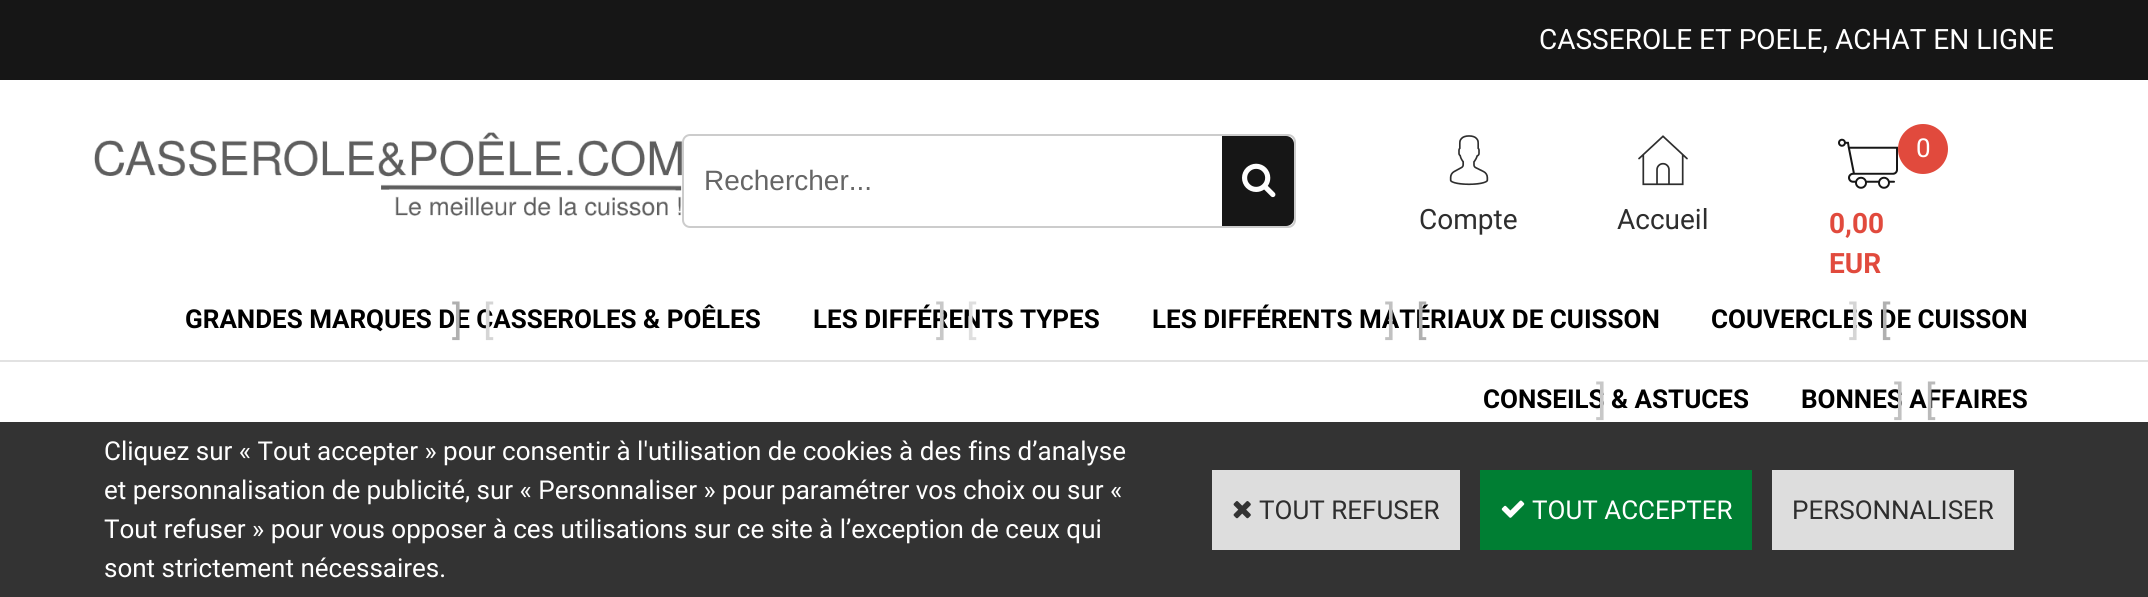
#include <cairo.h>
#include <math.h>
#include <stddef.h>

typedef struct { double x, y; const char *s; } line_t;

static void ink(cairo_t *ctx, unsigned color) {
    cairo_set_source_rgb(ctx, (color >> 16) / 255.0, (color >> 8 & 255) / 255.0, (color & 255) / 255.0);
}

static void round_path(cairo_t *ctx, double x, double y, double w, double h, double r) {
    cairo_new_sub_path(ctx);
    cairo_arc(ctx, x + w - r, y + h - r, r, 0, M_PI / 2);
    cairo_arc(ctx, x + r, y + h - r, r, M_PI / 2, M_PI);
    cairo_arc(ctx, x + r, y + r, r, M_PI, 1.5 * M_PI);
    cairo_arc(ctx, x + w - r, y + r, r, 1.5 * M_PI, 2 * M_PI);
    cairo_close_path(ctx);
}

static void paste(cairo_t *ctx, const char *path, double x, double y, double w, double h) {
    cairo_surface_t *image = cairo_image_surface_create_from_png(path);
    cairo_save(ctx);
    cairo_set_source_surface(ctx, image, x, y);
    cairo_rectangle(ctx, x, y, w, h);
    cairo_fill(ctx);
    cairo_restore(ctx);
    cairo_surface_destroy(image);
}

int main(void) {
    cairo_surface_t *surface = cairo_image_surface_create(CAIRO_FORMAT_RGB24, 2148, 597);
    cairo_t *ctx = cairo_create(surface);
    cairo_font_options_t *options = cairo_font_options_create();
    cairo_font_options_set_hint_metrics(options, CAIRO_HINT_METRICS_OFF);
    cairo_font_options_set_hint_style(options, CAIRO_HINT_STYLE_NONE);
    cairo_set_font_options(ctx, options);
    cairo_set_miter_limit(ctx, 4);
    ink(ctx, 0xFFFFFF);
    cairo_paint(ctx);
    ink(ctx, 0x161616);
    cairo_rectangle(ctx, 0, 0, 2148, 80);
    cairo_fill(ctx);
    ink(ctx, 0xE2E2E2);
    cairo_rectangle(ctx, 0, 360, 2148, 2);
    cairo_fill(ctx);
    cairo_select_font_face(ctx, "Roboto", CAIRO_FONT_SLANT_NORMAL, CAIRO_FONT_WEIGHT_NORMAL);
    cairo_set_font_size(ctx, 28);
    ink(ctx, 0xFFFFFF);
    cairo_move_to(ctx, 1539, 49);
    cairo_show_text(ctx, "CASSEROLE ET POELE, ACHAT EN LIGNE");
    paste(ctx, "media/1.png", 94, 132, 588, 84);
    round_path(ctx, 683, 135, 612, 92, 7);
    ink(ctx, 0xCCCCCC);
    cairo_stroke(ctx);
    cairo_select_font_face(ctx, "Liberation Sans", CAIRO_FONT_SLANT_NORMAL, CAIRO_FONT_WEIGHT_NORMAL);
    ink(ctx, 0x666666);
    cairo_move_to(ctx, 704, 190);
    cairo_show_text(ctx, "Rechercher...");
    ink(ctx, 0x161616);
    cairo_new_path(ctx);
    cairo_move_to(ctx, 1222, 136);
    cairo_line_to(ctx, 1286, 136);
    cairo_curve_to(ctx, 1290.5, 136, 1294, 139.5, 1294, 144);
    cairo_line_to(ctx, 1294, 218);
    cairo_curve_to(ctx, 1294, 222.5, 1290.5, 226, 1286, 226);
    cairo_line_to(ctx, 1222, 226);
    cairo_close_path(ctx);
    cairo_fill(ctx);
    paste(ctx, "media/2.png", 1242, 163, 34, 35);
    paste(ctx, "media/3.png", 1449, 135, 40, 51);
    cairo_select_font_face(ctx, "Roboto", CAIRO_FONT_SLANT_NORMAL, CAIRO_FONT_WEIGHT_NORMAL);
    ink(ctx, 0x2E2E2E);
    cairo_move_to(ctx, 1419, 229);
    cairo_show_text(ctx, "Compte");
    paste(ctx, "media/4.png", 1638, 135, 50, 51);
    cairo_move_to(ctx, 1617, 229);
    cairo_show_text(ctx, "Accueil");
    paste(ctx, "media/5.png", 1838, 138, 60, 51);
    ink(ctx, 0xE14A3D);
    cairo_arc(ctx, 1923, 149, 25, 0, 2 * M_PI);
    cairo_fill(ctx);
    cairo_set_font_size(ctx, 26);
    ink(ctx, 0xFFFFFF);
    cairo_move_to(ctx, 1916, 157);
    cairo_show_text(ctx, "0");
    cairo_select_font_face(ctx, "Roboto", CAIRO_FONT_SLANT_NORMAL, CAIRO_FONT_WEIGHT_BOLD);
    cairo_set_font_size(ctx, 28);
    ink(ctx, 0xE14A3D);
    cairo_move_to(ctx, 1829, 233);
    cairo_show_text(ctx, "0,00");
    cairo_move_to(ctx, 1829, 273);
    cairo_show_text(ctx, "EUR");
    cairo_set_font_size(ctx, 26);
    ink(ctx, 0x000000);
    cairo_move_to(ctx, 185, 328);
    cairo_show_text(ctx, "GRANDES MARQUES DE CASSEROLES & POÊLES");
    cairo_select_font_face(ctx, "Roboto", CAIRO_FONT_SLANT_NORMAL, CAIRO_FONT_WEIGHT_NORMAL);
    cairo_set_font_size(ctx, 40);
    ink(ctx, 0xB0B0B0);
    cairo_move_to(ctx, 452, 334);
    cairo_show_text(ctx, "]");
    ink(ctx, 0xD5D5D5);
    cairo_move_to(ctx, 483, 334);
    cairo_show_text(ctx, "[");
    cairo_select_font_face(ctx, "Roboto", CAIRO_FONT_SLANT_NORMAL, CAIRO_FONT_WEIGHT_BOLD);
    cairo_set_font_size(ctx, 26);
    ink(ctx, 0x000000);
    cairo_move_to(ctx, 813, 328);
    cairo_show_text(ctx, "LES DIFFÉRENTS TYPES");
    cairo_select_font_face(ctx, "Roboto", CAIRO_FONT_SLANT_NORMAL, CAIRO_FONT_WEIGHT_NORMAL);
    cairo_set_font_size(ctx, 40);
    ink(ctx, 0xC8C8C8);
    cairo_move_to(ctx, 936, 334);
    cairo_show_text(ctx, "]");
    ink(ctx, 0xDFDFDF);
    cairo_move_to(ctx, 966, 334);
    cairo_show_text(ctx, "[");
    cairo_select_font_face(ctx, "Roboto", CAIRO_FONT_SLANT_NORMAL, CAIRO_FONT_WEIGHT_BOLD);
    cairo_set_font_size(ctx, 26);
    ink(ctx, 0x000000);
    cairo_move_to(ctx, 1152, 328);
    cairo_show_text(ctx, "LES DIFFÉRENTS MATÉRIAUX DE CUISSON");
    cairo_select_font_face(ctx, "Roboto", CAIRO_FONT_SLANT_NORMAL, CAIRO_FONT_WEIGHT_NORMAL);
    cairo_set_font_size(ctx, 40);
    ink(ctx, 0xC1C1C1);
    cairo_move_to(ctx, 1385, 334);
    cairo_show_text(ctx, "]");
    ink(ctx, 0xB0B0B0);
    cairo_move_to(ctx, 1416, 334);
    cairo_show_text(ctx, "[");
    cairo_select_font_face(ctx, "Roboto", CAIRO_FONT_SLANT_NORMAL, CAIRO_FONT_WEIGHT_BOLD);
    cairo_set_font_size(ctx, 26);
    ink(ctx, 0x000000);
    cairo_move_to(ctx, 1711, 328);
    cairo_show_text(ctx, "COUVERCLES DE CUISSON");
    cairo_select_font_face(ctx, "Roboto", CAIRO_FONT_SLANT_NORMAL, CAIRO_FONT_WEIGHT_NORMAL);
    cairo_set_font_size(ctx, 40);
    ink(ctx, 0xD5D5D5);
    cairo_move_to(ctx, 1849, 334);
    cairo_show_text(ctx, "]");
    ink(ctx, 0xB0B0B0);
    cairo_move_to(ctx, 1880, 334);
    cairo_show_text(ctx, "[");
    cairo_select_font_face(ctx, "Roboto", CAIRO_FONT_SLANT_NORMAL, CAIRO_FONT_WEIGHT_BOLD);
    cairo_set_font_size(ctx, 26);
    ink(ctx, 0x000000);
    cairo_move_to(ctx, 1483, 408);
    cairo_show_text(ctx, "CONSEILS & ASTUCES");
    cairo_select_font_face(ctx, "Roboto", CAIRO_FONT_SLANT_NORMAL, CAIRO_FONT_WEIGHT_NORMAL);
    cairo_set_font_size(ctx, 40);
    ink(ctx, 0xC8C8C8);
    cairo_move_to(ctx, 1596, 414);
    cairo_show_text(ctx, "]");
    cairo_select_font_face(ctx, "Roboto", CAIRO_FONT_SLANT_NORMAL, CAIRO_FONT_WEIGHT_BOLD);
    cairo_set_font_size(ctx, 26);
    ink(ctx, 0x000000);
    cairo_move_to(ctx, 1801, 408);
    cairo_show_text(ctx, "BONNES AFFAIRES");
    cairo_select_font_face(ctx, "Roboto", CAIRO_FONT_SLANT_NORMAL, CAIRO_FONT_WEIGHT_NORMAL);
    cairo_set_font_size(ctx, 40);
    ink(ctx, 0xC1C1C1);
    cairo_move_to(ctx, 1894, 414);
    cairo_show_text(ctx, "]");
    ink(ctx, 0xBABABA);
    cairo_move_to(ctx, 1925, 414);
    cairo_show_text(ctx, "[");
    ink(ctx, 0x333333);
    cairo_rectangle(ctx, 0, 422, 2148, 175);
    cairo_fill(ctx);
    cairo_set_font_size(ctx, 26);
    ink(ctx, 0xFFFFFF);
    {
        static const line_t items[] = {
            {104, 460, "Cliquez sur « Tout accepter » pour consentir à l'utilisation de cookies à des fins d’analyse"},
            {104, 499, "et personnalisation de publicité, sur « Personnaliser » pour paramétrer vos choix ou sur «"},
            {104, 538, "Tout refuser » pour vous opposer à ces utilisations sur ce site à l’exception de ceux qui"},
            {104, 577, "sont strictement nécessaires."},
        };
        for (size_t i = 0; i < sizeof items / sizeof *items; i++) {
            cairo_move_to(ctx, items[i].x, items[i].y);
            cairo_show_text(ctx, items[i].s);
        }
    }
    ink(ctx, 0xDDDDDD);
    cairo_rectangle(ctx, 1212, 470, 248, 80);
    cairo_fill(ctx);
    paste(ctx, "media/6.png", 1233, 501, 18, 18);
    ink(ctx, 0x2E2E2E);
    cairo_move_to(ctx, 1259, 519);
    cairo_show_text(ctx, "TOUT REFUSER");
    ink(ctx, 0x007E33);
    cairo_rectangle(ctx, 1480, 470, 272, 80);
    cairo_fill(ctx);
    paste(ctx, "media/7.png", 1501, 500, 24, 18);
    ink(ctx, 0xFFFFFF);
    cairo_move_to(ctx, 1532, 519);
    cairo_show_text(ctx, "TOUT ACCEPTER");
    ink(ctx, 0xDDDDDD);
    cairo_rectangle(ctx, 1772, 470, 242, 80);
    cairo_fill(ctx);
    ink(ctx, 0x2E2E2E);
    cairo_move_to(ctx, 1792, 519);
    cairo_show_text(ctx, "PERSONNALISER");
    cairo_surface_write_to_png(surface, "image.png");
    cairo_font_options_destroy(options);
    cairo_destroy(ctx);
    cairo_surface_destroy(surface);
    return 0;
}
